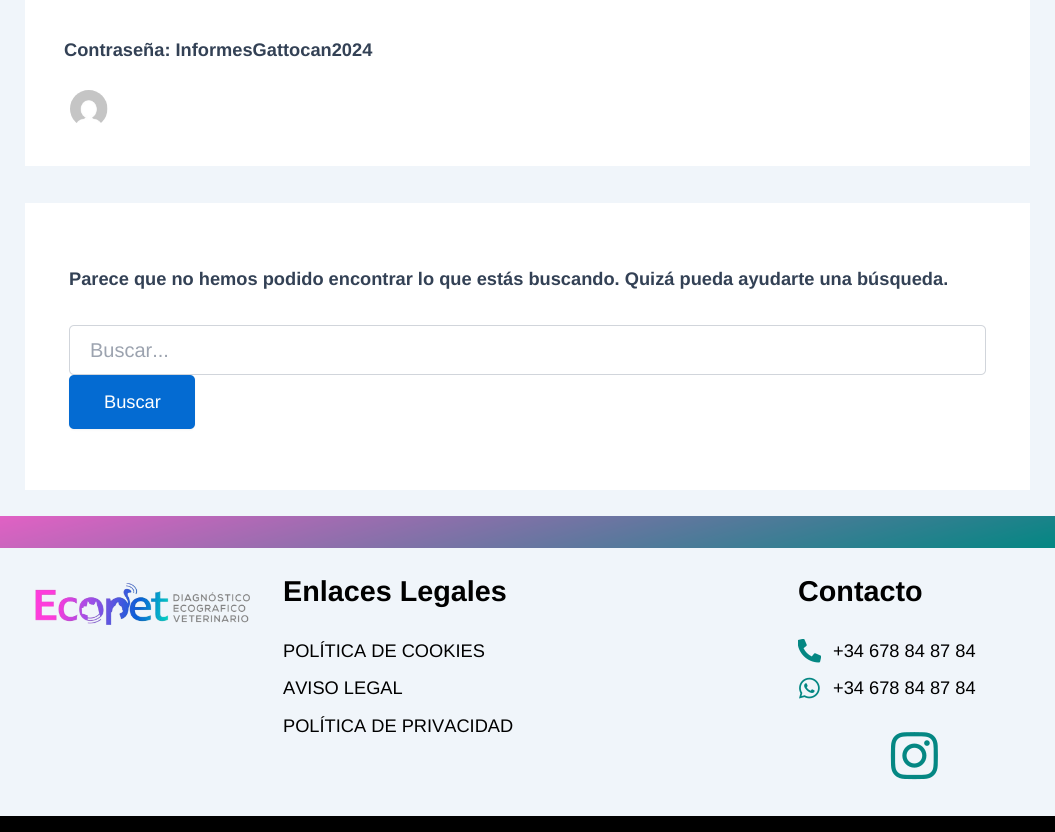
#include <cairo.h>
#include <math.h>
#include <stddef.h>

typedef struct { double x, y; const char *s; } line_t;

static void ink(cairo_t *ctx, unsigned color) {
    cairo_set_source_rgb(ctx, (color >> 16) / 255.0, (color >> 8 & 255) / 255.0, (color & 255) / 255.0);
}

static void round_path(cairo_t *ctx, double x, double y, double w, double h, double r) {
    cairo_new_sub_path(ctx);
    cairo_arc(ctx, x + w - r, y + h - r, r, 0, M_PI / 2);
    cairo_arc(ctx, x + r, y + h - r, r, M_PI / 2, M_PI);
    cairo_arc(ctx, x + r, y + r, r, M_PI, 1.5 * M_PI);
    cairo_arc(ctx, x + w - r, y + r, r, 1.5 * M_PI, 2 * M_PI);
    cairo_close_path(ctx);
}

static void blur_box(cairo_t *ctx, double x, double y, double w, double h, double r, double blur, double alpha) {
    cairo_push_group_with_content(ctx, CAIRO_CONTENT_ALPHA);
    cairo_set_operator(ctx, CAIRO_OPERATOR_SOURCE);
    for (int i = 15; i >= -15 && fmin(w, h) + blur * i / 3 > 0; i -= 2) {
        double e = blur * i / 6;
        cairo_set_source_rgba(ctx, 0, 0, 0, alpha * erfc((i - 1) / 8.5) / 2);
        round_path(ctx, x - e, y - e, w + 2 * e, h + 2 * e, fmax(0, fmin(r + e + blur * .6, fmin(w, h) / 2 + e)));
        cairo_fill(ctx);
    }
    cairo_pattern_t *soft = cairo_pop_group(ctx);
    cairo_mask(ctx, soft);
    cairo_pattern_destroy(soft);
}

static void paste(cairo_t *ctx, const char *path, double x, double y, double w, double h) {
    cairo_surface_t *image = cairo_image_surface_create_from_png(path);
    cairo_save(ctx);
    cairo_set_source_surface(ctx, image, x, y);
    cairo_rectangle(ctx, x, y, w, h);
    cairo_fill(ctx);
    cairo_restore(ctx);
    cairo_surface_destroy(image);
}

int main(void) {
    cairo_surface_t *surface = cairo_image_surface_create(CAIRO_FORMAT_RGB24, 1055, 832);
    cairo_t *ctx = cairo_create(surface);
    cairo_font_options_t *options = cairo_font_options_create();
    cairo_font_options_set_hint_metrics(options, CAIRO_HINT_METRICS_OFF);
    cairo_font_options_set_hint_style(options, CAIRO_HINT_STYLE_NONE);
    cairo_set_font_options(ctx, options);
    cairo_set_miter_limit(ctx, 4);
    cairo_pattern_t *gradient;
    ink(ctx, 0xF0F5FA);
    cairo_paint(ctx);
    ink(ctx, 0xFFFFFF);
    cairo_rectangle(ctx, 25, 0, 1005, 166);
    cairo_fill(ctx);
    cairo_select_font_face(ctx, "Liberation Sans", CAIRO_FONT_SLANT_NORMAL, CAIRO_FONT_WEIGHT_BOLD);
    cairo_set_font_size(ctx, 18.25);
    ink(ctx, 0x334155);
    cairo_move_to(ctx, 64, 56);
    cairo_show_text(ctx, "Contraseña: InformesGattocan2024");
    paste(ctx, "media/1.png", 70, 90, 38, 33);
    ink(ctx, 0xFFFFFF);
    cairo_rectangle(ctx, 25, 203, 1005, 287);
    cairo_fill(ctx);
    ink(ctx, 0x334155);
    cairo_move_to(ctx, 69, 285);
    cairo_show_text(ctx, "Parece que no hemos podido encontrar lo que estás buscando. Quizá pueda ayudarte una búsqueda.");
    round_path(ctx, 69.5, 325.5, 916, 49, 4.5);
    ink(ctx, 0xD1D5DB);
    cairo_set_line_width(ctx, 1);
    cairo_stroke(ctx);
    cairo_select_font_face(ctx, "Liberation Sans", CAIRO_FONT_SLANT_NORMAL, CAIRO_FONT_WEIGHT_NORMAL);
    cairo_set_font_size(ctx, 20);
    ink(ctx, 0x9CA3AF);
    cairo_move_to(ctx, 90, 357);
    cairo_show_text(ctx, "Buscar...");
    ink(ctx, 0x000000);
    blur_box(ctx, 69, 376, 126, 54, 5, 1, 0.05);
    ink(ctx, 0x046BD2);
    round_path(ctx, 69, 375, 126, 54, 5);
    cairo_fill(ctx);
    cairo_set_font_size(ctx, 18.25);
    ink(ctx, 0xFFFFFF);
    cairo_move_to(ctx, 104, 408);
    cairo_show_text(ctx, "Buscar");
    gradient = cairo_pattern_create_linear(488, 385, 567, 678);
    cairo_pattern_add_color_stop_rgba(gradient, 0, 0.882, 0.38, 0.769, 1);
    cairo_pattern_add_color_stop_rgba(gradient, 1, 0.016, 0.529, 0.514, 1);
    cairo_set_source(ctx, gradient);
    cairo_pattern_destroy(gradient);
    cairo_rectangle(ctx, 0, 516, 1055, 32);
    cairo_fill(ctx);
    paste(ctx, "media/2.png", 35, 583, 215, 42);
    cairo_select_font_face(ctx, "Liberation Sans", CAIRO_FONT_SLANT_NORMAL, CAIRO_FONT_WEIGHT_BOLD);
    cairo_set_font_size(ctx, 28.75);
    ink(ctx, 0x000000);
    cairo_move_to(ctx, 283, 601);
    cairo_show_text(ctx, "Enlaces Legales");
    cairo_select_font_face(ctx, "Liberation Sans", CAIRO_FONT_SLANT_NORMAL, CAIRO_FONT_WEIGHT_NORMAL);
    cairo_set_font_size(ctx, 18.25);
    {
        static const line_t items[] = {
            {283, 657, "POLÍTICA DE COOKIES"},
            {283, 694, "AVISO LEGAL"},
            {283, 732, "POLÍTICA DE PRIVACIDAD"},
        };
        for (size_t i = 0; i < sizeof items / sizeof *items; i++) {
            cairo_move_to(ctx, items[i].x, items[i].y);
            cairo_show_text(ctx, items[i].s);
        }
    }
    cairo_select_font_face(ctx, "Liberation Sans", CAIRO_FONT_SLANT_NORMAL, CAIRO_FONT_WEIGHT_BOLD);
    cairo_set_font_size(ctx, 28.75);
    cairo_move_to(ctx, 798, 601);
    cairo_show_text(ctx, "Contacto");
    paste(ctx, "media/3.png", 798, 639, 23, 24);
    cairo_select_font_face(ctx, "Liberation Sans", CAIRO_FONT_SLANT_NORMAL, CAIRO_FONT_WEIGHT_NORMAL);
    cairo_set_font_size(ctx, 18.25);
    cairo_move_to(ctx, 833, 657);
    cairo_show_text(ctx, "+34 678 84 87 84");
    paste(ctx, "media/4.png", 799, 677, 21, 22);
    cairo_move_to(ctx, 833, 694);
    cairo_show_text(ctx, "+34 678 84 87 84");
    paste(ctx, "media/5.png", 890, 732, 48, 48);
    cairo_rectangle(ctx, 0, 816, 1055, 16);
    cairo_fill(ctx);
    cairo_surface_write_to_png(surface, "image.png");
    cairo_font_options_destroy(options);
    cairo_destroy(ctx);
    cairo_surface_destroy(surface);
    return 0;
}
